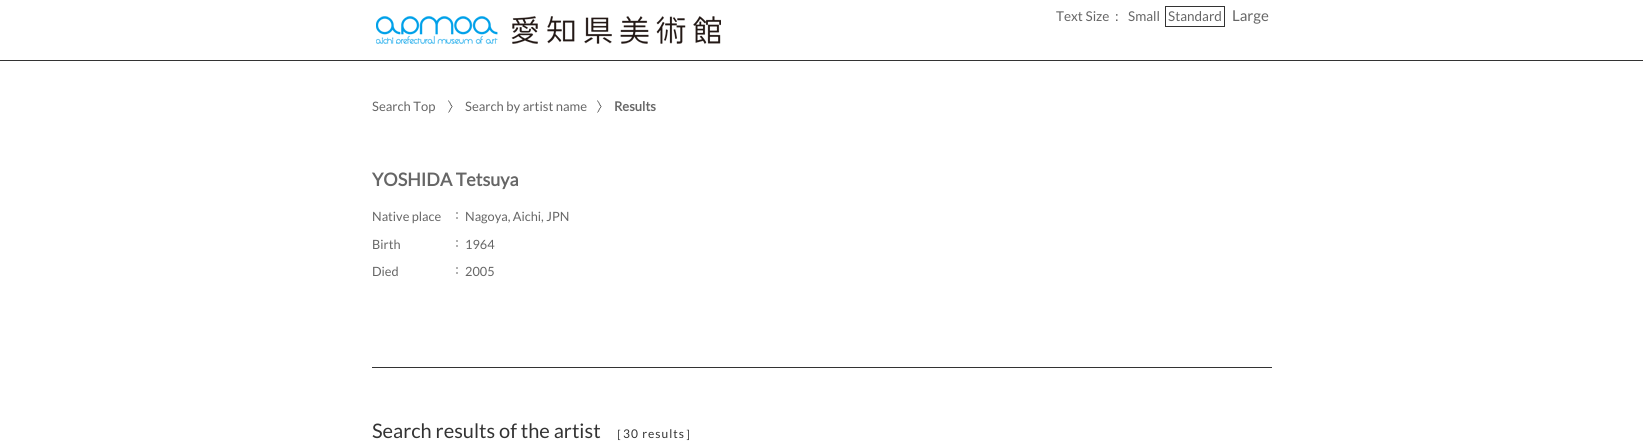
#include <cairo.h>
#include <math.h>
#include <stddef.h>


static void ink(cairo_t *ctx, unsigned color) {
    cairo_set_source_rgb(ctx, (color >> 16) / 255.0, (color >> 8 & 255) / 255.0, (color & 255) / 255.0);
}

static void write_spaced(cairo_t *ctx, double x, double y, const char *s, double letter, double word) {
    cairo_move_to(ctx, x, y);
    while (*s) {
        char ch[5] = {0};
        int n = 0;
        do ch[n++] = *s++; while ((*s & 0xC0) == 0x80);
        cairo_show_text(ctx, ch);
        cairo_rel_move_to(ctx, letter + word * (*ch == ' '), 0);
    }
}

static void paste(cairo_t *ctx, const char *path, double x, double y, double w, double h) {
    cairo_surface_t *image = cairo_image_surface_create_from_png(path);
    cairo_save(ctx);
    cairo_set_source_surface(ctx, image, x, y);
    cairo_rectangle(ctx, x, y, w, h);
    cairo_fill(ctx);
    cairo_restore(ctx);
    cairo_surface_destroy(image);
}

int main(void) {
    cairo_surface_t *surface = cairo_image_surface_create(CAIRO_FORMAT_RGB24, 1643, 445);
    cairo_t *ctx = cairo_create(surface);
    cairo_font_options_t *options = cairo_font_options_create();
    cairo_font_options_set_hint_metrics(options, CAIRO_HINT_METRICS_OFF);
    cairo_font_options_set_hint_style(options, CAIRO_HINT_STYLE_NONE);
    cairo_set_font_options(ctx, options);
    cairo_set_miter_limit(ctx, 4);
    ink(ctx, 0xFFFFFF);
    cairo_paint(ctx);
    paste(ctx, "media/1.png", 376, 16, 345, 28);
    cairo_select_font_face(ctx, "Lato", CAIRO_FONT_SLANT_NORMAL, CAIRO_FONT_WEIGHT_NORMAL);
    cairo_set_font_size(ctx, 13.5);
    ink(ctx, 0x666666);
    cairo_move_to(ctx, 1056, 21);
    cairo_show_text(ctx, "Text Size");
    cairo_select_font_face(ctx, "WenQuanYi Zen Hei Medium", CAIRO_FONT_SLANT_NORMAL, CAIRO_FONT_WEIGHT_NORMAL);
    cairo_move_to(ctx, 1110, 21);
    cairo_show_text(ctx, "：");
    cairo_select_font_face(ctx, "Lato", CAIRO_FONT_SLANT_NORMAL, CAIRO_FONT_WEIGHT_NORMAL);
    cairo_move_to(ctx, 1128, 21);
    cairo_show_text(ctx, "Small");
    cairo_rectangle(ctx, 1165.5, 6.5, 59, 20);
    ink(ctx, 0x333333);
    cairo_set_line_width(ctx, 1);
    cairo_stroke(ctx);
    ink(ctx, 0x666666);
    cairo_move_to(ctx, 1168, 21);
    cairo_show_text(ctx, "Standard");
    cairo_set_font_size(ctx, 15);
    cairo_move_to(ctx, 1232, 21);
    cairo_show_text(ctx, "Large");
    ink(ctx, 0x333333);
    cairo_rectangle(ctx, 0, 60, 1643, 1);
    cairo_fill(ctx);
    cairo_set_font_size(ctx, 13);
    ink(ctx, 0x666666);
    cairo_move_to(ctx, 372, 111);
    cairo_show_text(ctx, "Search Top");
    paste(ctx, "media/2.png", 448, 100, 5, 13);
    cairo_move_to(ctx, 465, 111);
    cairo_show_text(ctx, "Search by artist name");
    paste(ctx, "media/2.png", 597, 100, 5, 13);
    cairo_select_font_face(ctx, "Lato", CAIRO_FONT_SLANT_NORMAL, CAIRO_FONT_WEIGHT_BOLD);
    cairo_move_to(ctx, 614, 111);
    cairo_show_text(ctx, "Results");
    cairo_set_font_size(ctx, 18);
    cairo_move_to(ctx, 372, 186);
    cairo_show_text(ctx, "YOSHIDA Tetsuya");
    cairo_select_font_face(ctx, "Lato", CAIRO_FONT_SLANT_NORMAL, CAIRO_FONT_WEIGHT_NORMAL);
    cairo_set_font_size(ctx, 12.75);
    cairo_move_to(ctx, 372, 221);
    cairo_show_text(ctx, "Native place");
    paste(ctx, "media/3.png", 456, 212, 2, 7);
    cairo_move_to(ctx, 465, 221);
    cairo_show_text(ctx, "Nagoya, Aichi, JPN");
    cairo_move_to(ctx, 372, 249);
    cairo_show_text(ctx, "Birth");
    paste(ctx, "media/3.png", 456, 240, 2, 7);
    cairo_move_to(ctx, 465, 249);
    cairo_show_text(ctx, "1964");
    cairo_move_to(ctx, 372, 276);
    cairo_show_text(ctx, "Died");
    paste(ctx, "media/3.png", 456, 267, 2, 7);
    cairo_move_to(ctx, 465, 276);
    cairo_show_text(ctx, "2005");
    ink(ctx, 0x333333);
    cairo_rectangle(ctx, 372, 367, 900, 1);
    cairo_fill(ctx);
    cairo_set_font_size(ctx, 20);
    cairo_move_to(ctx, 372, 438);
    cairo_show_text(ctx, "Search results of the artist");
    cairo_select_font_face(ctx, "WenQuanYi Zen Hei Medium", CAIRO_FONT_SLANT_NORMAL, CAIRO_FONT_WEIGHT_NORMAL);
    cairo_set_font_size(ctx, 12);
    write_spaced(ctx, 610, 438, "［", 1, 0);
    cairo_select_font_face(ctx, "Lato", CAIRO_FONT_SLANT_NORMAL, CAIRO_FONT_WEIGHT_NORMAL);
    write_spaced(ctx, 623, 438, "30 results", 1, 0);
    cairo_select_font_face(ctx, "WenQuanYi Zen Hei Medium", CAIRO_FONT_SLANT_NORMAL, CAIRO_FONT_WEIGHT_NORMAL);
    write_spaced(ctx, 685, 438, "］", 1, 0);
    cairo_surface_write_to_png(surface, "image.png");
    cairo_font_options_destroy(options);
    cairo_destroy(ctx);
    cairo_surface_destroy(surface);
    return 0;
}
